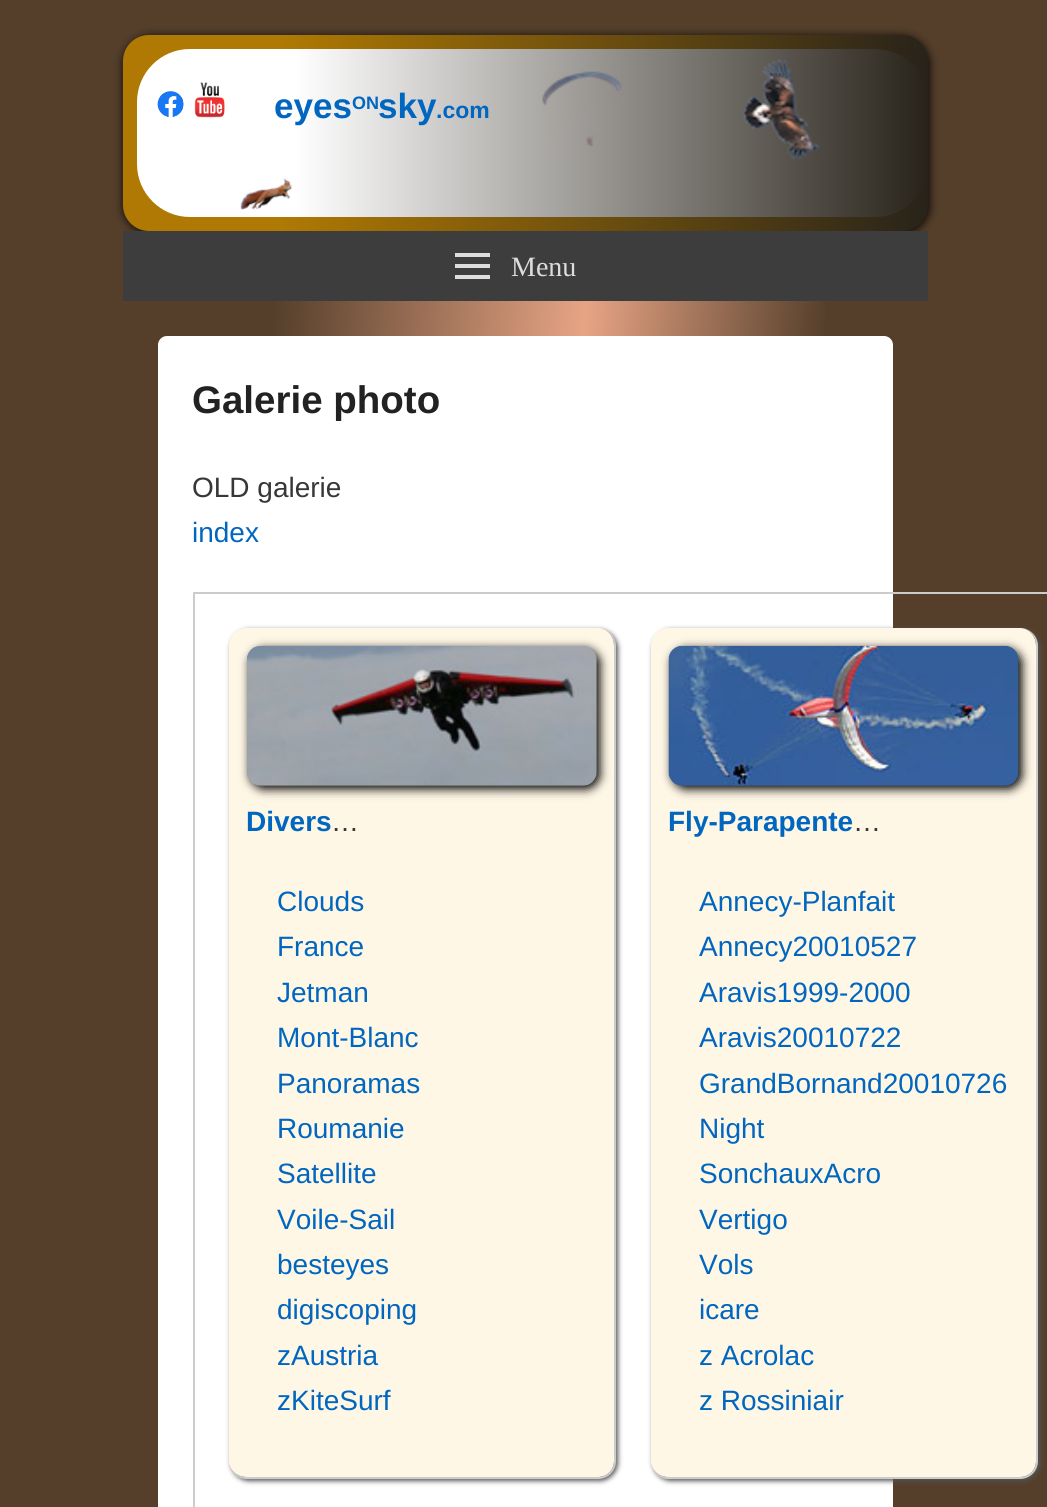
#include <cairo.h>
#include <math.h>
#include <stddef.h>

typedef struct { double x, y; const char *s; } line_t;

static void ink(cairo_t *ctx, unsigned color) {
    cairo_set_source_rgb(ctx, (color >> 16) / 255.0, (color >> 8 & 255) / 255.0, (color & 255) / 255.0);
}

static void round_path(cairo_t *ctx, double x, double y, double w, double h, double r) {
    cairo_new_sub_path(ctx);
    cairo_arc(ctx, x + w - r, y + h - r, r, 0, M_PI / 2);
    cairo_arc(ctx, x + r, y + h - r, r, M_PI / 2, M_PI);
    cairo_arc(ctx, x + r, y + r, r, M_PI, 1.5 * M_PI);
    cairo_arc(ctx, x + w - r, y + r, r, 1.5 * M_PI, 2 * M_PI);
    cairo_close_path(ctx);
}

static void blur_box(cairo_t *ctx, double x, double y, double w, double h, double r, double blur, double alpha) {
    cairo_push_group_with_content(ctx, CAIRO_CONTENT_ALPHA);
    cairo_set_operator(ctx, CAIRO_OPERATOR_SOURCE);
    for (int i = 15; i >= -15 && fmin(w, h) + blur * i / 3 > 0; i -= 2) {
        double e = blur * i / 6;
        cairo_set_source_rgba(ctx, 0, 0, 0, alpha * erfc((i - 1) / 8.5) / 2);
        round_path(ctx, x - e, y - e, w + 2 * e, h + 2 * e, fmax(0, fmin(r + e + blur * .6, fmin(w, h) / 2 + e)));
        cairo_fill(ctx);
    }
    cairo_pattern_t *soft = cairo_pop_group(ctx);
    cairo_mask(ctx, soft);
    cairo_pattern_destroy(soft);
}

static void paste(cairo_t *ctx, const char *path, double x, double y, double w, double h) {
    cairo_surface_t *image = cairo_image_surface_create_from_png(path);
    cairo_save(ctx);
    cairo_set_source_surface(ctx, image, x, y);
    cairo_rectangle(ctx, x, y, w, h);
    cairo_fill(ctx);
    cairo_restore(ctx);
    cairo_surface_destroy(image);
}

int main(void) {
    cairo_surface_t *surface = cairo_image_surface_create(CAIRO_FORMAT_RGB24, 1047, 1507);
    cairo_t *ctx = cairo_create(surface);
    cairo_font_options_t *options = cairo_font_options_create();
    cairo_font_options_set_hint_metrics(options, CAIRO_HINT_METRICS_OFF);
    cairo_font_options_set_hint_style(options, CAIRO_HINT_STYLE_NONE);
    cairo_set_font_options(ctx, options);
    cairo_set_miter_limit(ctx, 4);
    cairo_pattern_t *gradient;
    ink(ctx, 0x553F2B);
    cairo_paint(ctx);
    ink(ctx, 0x000000);
    blur_box(ctx, 124, 37, 805, 196, 26, 5, 1);
    gradient = cairo_pattern_create_linear(123, 133, 928, 133);
    cairo_pattern_add_color_stop_rgba(gradient, 0.2, 0.686, 0.475, 0.012, 1);
    cairo_pattern_add_color_stop_rgba(gradient, 1, 0.157, 0.137, 0.102, 1);
    cairo_set_source(ctx, gradient);
    cairo_pattern_destroy(gradient);
    round_path(ctx, 123, 35, 805, 196, 26);
    cairo_fill(ctx);
    gradient = cairo_pattern_create_linear(137, 133, 928, 133);
    cairo_pattern_add_color_stop_rgba(gradient, 0.2, 1, 1, 1, 1);
    cairo_pattern_add_color_stop_rgba(gradient, 1, 0.157, 0.137, 0.102, 1);
    cairo_set_source(ctx, gradient);
    cairo_pattern_destroy(gradient);
    round_path(ctx, 137, 49, 791, 168, 53);
    cairo_fill(ctx);
    paste(ctx, "media/1.png", 157, 91, 27, 27);
    paste(ctx, "media/2.png", 194, 82, 31, 36);
    cairo_select_font_face(ctx, "Liberation Sans", CAIRO_FONT_SLANT_NORMAL, CAIRO_FONT_WEIGHT_BOLD);
    cairo_set_font_size(ctx, 35);
    ink(ctx, 0x0066BF);
    cairo_move_to(ctx, 274, 118);
    cairo_show_text(ctx, "eyes");
    cairo_set_font_size(ctx, 18);
    cairo_move_to(ctx, 352, 109);
    cairo_show_text(ctx, "ON");
    cairo_set_font_size(ctx, 35);
    cairo_move_to(ctx, 378, 118);
    cairo_show_text(ctx, "sky");
    cairo_set_font_size(ctx, 23);
    cairo_move_to(ctx, 436, 118);
    cairo_show_text(ctx, ".com");
    paste(ctx, "media/3.png", 542, 71, 80, 76);
    paste(ctx, "media/4.png", 742, 59, 78, 101);
    paste(ctx, "media/5.png", 240, 178, 53, 32);
    ink(ctx, 0x3D3D3D);
    cairo_rectangle(ctx, 123, 231, 805, 70);
    cairo_fill(ctx);
    ink(ctx, 0xDDDDDD);
    cairo_new_path(ctx);
    cairo_move_to(ctx, 455, 279);
    cairo_line_to(ctx, 455, 275);
    cairo_line_to(ctx, 490, 275);
    cairo_line_to(ctx, 490, 279);
    cairo_close_path(ctx);
    cairo_move_to(ctx, 455, 253);
    cairo_line_to(ctx, 490, 253);
    cairo_line_to(ctx, 490, 257);
    cairo_line_to(ctx, 455, 257);
    cairo_close_path(ctx);
    cairo_move_to(ctx, 455, 268);
    cairo_line_to(ctx, 455, 264);
    cairo_line_to(ctx, 490, 264);
    cairo_line_to(ctx, 490, 268);
    cairo_close_path(ctx);
    cairo_fill(ctx);
    cairo_select_font_face(ctx, "Liberation Serif", CAIRO_FONT_SLANT_NORMAL, CAIRO_FONT_WEIGHT_NORMAL);
    cairo_set_font_size(ctx, 28);
    cairo_move_to(ctx, 511, 276);
    cairo_show_text(ctx, "Menu");
    gradient = cairo_pattern_create_linear(-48, 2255, 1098, 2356);
    cairo_pattern_add_color_stop_rgba(gradient, 0.13, 0.333, 0.247, 0.169, 1);
    cairo_pattern_add_color_stop_rgba(gradient, 0.4, 0.906, 0.643, 0.518, 1);
    cairo_pattern_add_color_stop_rgba(gradient, 0.61, 0.333, 0.247, 0.169, 1);
    cairo_set_source(ctx, gradient);
    cairo_pattern_destroy(gradient);
    cairo_rectangle(ctx, 173, 301, 652, 1206);
    cairo_fill(ctx);
    ink(ctx, 0xFFFFFF);
    round_path(ctx, 158, 336, 735, 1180, 9);
    cairo_fill(ctx);
    cairo_select_font_face(ctx, "Liberation Sans", CAIRO_FONT_SLANT_NORMAL, CAIRO_FONT_WEIGHT_BOLD);
    cairo_set_font_size(ctx, 38.5);
    ink(ctx, 0x222222);
    cairo_move_to(ctx, 192, 413);
    cairo_show_text(ctx, "Galerie photo");
    cairo_select_font_face(ctx, "Liberation Sans", CAIRO_FONT_SLANT_NORMAL, CAIRO_FONT_WEIGHT_NORMAL);
    cairo_set_font_size(ctx, 28);
    ink(ctx, 0x373737);
    cairo_move_to(ctx, 192, 497);
    cairo_show_text(ctx, "OLD galerie");
    ink(ctx, 0x0066BF);
    cairo_move_to(ctx, 192, 542);
    cairo_show_text(ctx, "index");
    ink(ctx, 0xCCCCCC);
    cairo_rectangle(ctx, 193, 592, 854, 2);
    cairo_fill(ctx);
    cairo_rectangle(ctx, 193, 592, 2, 915);
    cairo_fill(ctx);
    ink(ctx, 0x555555);
    blur_box(ctx, 231, 630, 387, 851, 18, 2.5, 1);
    ink(ctx, 0xFFF7E6);
    cairo_new_path(ctx);
    cairo_move_to(ctx, 247, 628);
    cairo_line_to(ctx, 598, 628);
    cairo_curve_to(ctx, 607, 628, 614, 636, 614, 646);
    cairo_line_to(ctx, 614, 1461);
    cairo_curve_to(ctx, 614, 1470, 607, 1477, 598, 1477);
    cairo_line_to(ctx, 247, 1477);
    cairo_curve_to(ctx, 237, 1477, 229, 1470, 229, 1461);
    cairo_line_to(ctx, 229, 646);
    cairo_curve_to(ctx, 229, 636, 237, 628, 247, 628);
    cairo_close_path(ctx);
    cairo_fill(ctx);
    ink(ctx, 0xCCCCCC);
    cairo_set_fill_rule(ctx, CAIRO_FILL_RULE_EVEN_ODD);
    cairo_new_path(ctx);
    cairo_move_to(ctx, 247, 628);
    cairo_line_to(ctx, 598, 628);
    cairo_curve_to(ctx, 608, 628, 616, 636, 616, 646);
    cairo_line_to(ctx, 616, 1461);
    cairo_curve_to(ctx, 616, 1471, 608, 1479, 598, 1479);
    cairo_line_to(ctx, 247, 1479);
    cairo_curve_to(ctx, 237, 1479, 229, 1471, 229, 1461);
    cairo_line_to(ctx, 229, 646);
    cairo_curve_to(ctx, 229, 636, 237, 628, 247, 628);
    cairo_close_path(ctx);
    cairo_move_to(ctx, 247, 628);
    cairo_line_to(ctx, 598, 628);
    cairo_curve_to(ctx, 607, 628, 614, 636, 614, 646);
    cairo_line_to(ctx, 614, 1461);
    cairo_curve_to(ctx, 614, 1470, 607, 1477, 598, 1477);
    cairo_line_to(ctx, 247, 1477);
    cairo_curve_to(ctx, 237, 1477, 229, 1470, 229, 1461);
    cairo_line_to(ctx, 229, 646);
    cairo_curve_to(ctx, 229, 636, 237, 628, 247, 628);
    cairo_close_path(ctx);
    cairo_fill(ctx);
    ink(ctx, 0x000000);
    blur_box(ctx, 250, 649, 350, 140, 14, 5, 1);
    paste(ctx, "media/6.png", 246, 645, 351, 141);
    cairo_select_font_face(ctx, "Liberation Sans", CAIRO_FONT_SLANT_NORMAL, CAIRO_FONT_WEIGHT_BOLD);
    ink(ctx, 0x0066BF);
    cairo_move_to(ctx, 246, 831);
    cairo_show_text(ctx, "Divers");
    cairo_select_font_face(ctx, "Liberation Sans", CAIRO_FONT_SLANT_NORMAL, CAIRO_FONT_WEIGHT_NORMAL);
    ink(ctx, 0x373737);
    cairo_move_to(ctx, 331, 831);
    cairo_show_text(ctx, "…");
    ink(ctx, 0x0066BF);
    {
        static const line_t items[] = {
            {277, 911, "Clouds"},
            {277, 956, "France"},
            {277, 1002, "Jetman"},
            {277, 1047, "Mont-Blanc"},
            {277, 1093, "Panoramas"},
            {277, 1138, "Roumanie"},
            {277, 1183, "Satellite"},
            {277, 1229, "Voile-Sail"},
            {277, 1274, "besteyes"},
            {277, 1319, "digiscoping"},
            {277, 1365, "zAustria"},
            {277, 1410, "zKiteSurf"},
        };
        for (size_t i = 0; i < sizeof items / sizeof *items; i++) {
            cairo_move_to(ctx, items[i].x, items[i].y);
            cairo_show_text(ctx, items[i].s);
        }
    }
    ink(ctx, 0x555555);
    blur_box(ctx, 653, 630, 387, 851, 18, 2.5, 1);
    ink(ctx, 0xFFF7E6);
    cairo_set_fill_rule(ctx, CAIRO_FILL_RULE_WINDING);
    cairo_new_path(ctx);
    cairo_move_to(ctx, 668, 628);
    cairo_line_to(ctx, 1020, 628);
    cairo_curve_to(ctx, 1029, 628, 1036, 636, 1036, 646);
    cairo_line_to(ctx, 1036, 1461);
    cairo_curve_to(ctx, 1036, 1470, 1029, 1477, 1020, 1477);
    cairo_line_to(ctx, 668, 1477);
    cairo_curve_to(ctx, 659, 1477, 651, 1470, 651, 1461);
    cairo_line_to(ctx, 651, 646);
    cairo_curve_to(ctx, 651, 636, 659, 628, 668, 628);
    cairo_close_path(ctx);
    cairo_fill(ctx);
    ink(ctx, 0xCCCCCC);
    cairo_set_fill_rule(ctx, CAIRO_FILL_RULE_EVEN_ODD);
    cairo_new_path(ctx);
    cairo_move_to(ctx, 668, 628);
    cairo_line_to(ctx, 1020, 628);
    cairo_curve_to(ctx, 1030, 628, 1038, 636, 1038, 646);
    cairo_line_to(ctx, 1038, 1461);
    cairo_curve_to(ctx, 1038, 1471, 1030, 1479, 1020, 1479);
    cairo_line_to(ctx, 668, 1479);
    cairo_curve_to(ctx, 659, 1479, 651, 1471, 651, 1461);
    cairo_line_to(ctx, 651, 646);
    cairo_curve_to(ctx, 651, 636, 659, 628, 668, 628);
    cairo_close_path(ctx);
    cairo_move_to(ctx, 668, 628);
    cairo_line_to(ctx, 1020, 628);
    cairo_curve_to(ctx, 1029, 628, 1036, 636, 1036, 646);
    cairo_line_to(ctx, 1036, 1461);
    cairo_curve_to(ctx, 1036, 1470, 1029, 1477, 1020, 1477);
    cairo_line_to(ctx, 668, 1477);
    cairo_curve_to(ctx, 659, 1477, 651, 1470, 651, 1461);
    cairo_line_to(ctx, 651, 646);
    cairo_curve_to(ctx, 651, 636, 659, 628, 668, 628);
    cairo_close_path(ctx);
    cairo_fill(ctx);
    ink(ctx, 0x000000);
    blur_box(ctx, 672, 649, 350, 140, 14, 5, 1);
    paste(ctx, "media/7.png", 668, 645, 351, 141);
    cairo_select_font_face(ctx, "Liberation Sans", CAIRO_FONT_SLANT_NORMAL, CAIRO_FONT_WEIGHT_BOLD);
    ink(ctx, 0x0066BF);
    cairo_move_to(ctx, 668, 831);
    cairo_show_text(ctx, "Fly-Parapente");
    cairo_select_font_face(ctx, "Liberation Sans", CAIRO_FONT_SLANT_NORMAL, CAIRO_FONT_WEIGHT_NORMAL);
    ink(ctx, 0x373737);
    cairo_move_to(ctx, 853, 831);
    cairo_show_text(ctx, "…");
    ink(ctx, 0x0066BF);
    {
        static const line_t items[] = {
            {699, 911, "Annecy-Planfait"},
            {699, 956, "Annecy20010527"},
            {699, 1002, "Aravis1999-2000"},
            {699, 1047, "Aravis20010722"},
            {699, 1093, "GrandBornand20010726"},
            {699, 1138, "Night"},
            {699, 1183, "SonchauxAcro"},
            {699, 1229, "Vertigo"},
            {699, 1274, "Vols"},
            {699, 1319, "icare"},
            {699, 1365, "z Acrolac"},
            {699, 1410, "z Rossiniair"},
        };
        for (size_t i = 0; i < sizeof items / sizeof *items; i++) {
            cairo_move_to(ctx, items[i].x, items[i].y);
            cairo_show_text(ctx, items[i].s);
        }
    }
    cairo_surface_write_to_png(surface, "image.png");
    cairo_font_options_destroy(options);
    cairo_destroy(ctx);
    cairo_surface_destroy(surface);
    return 0;
}
